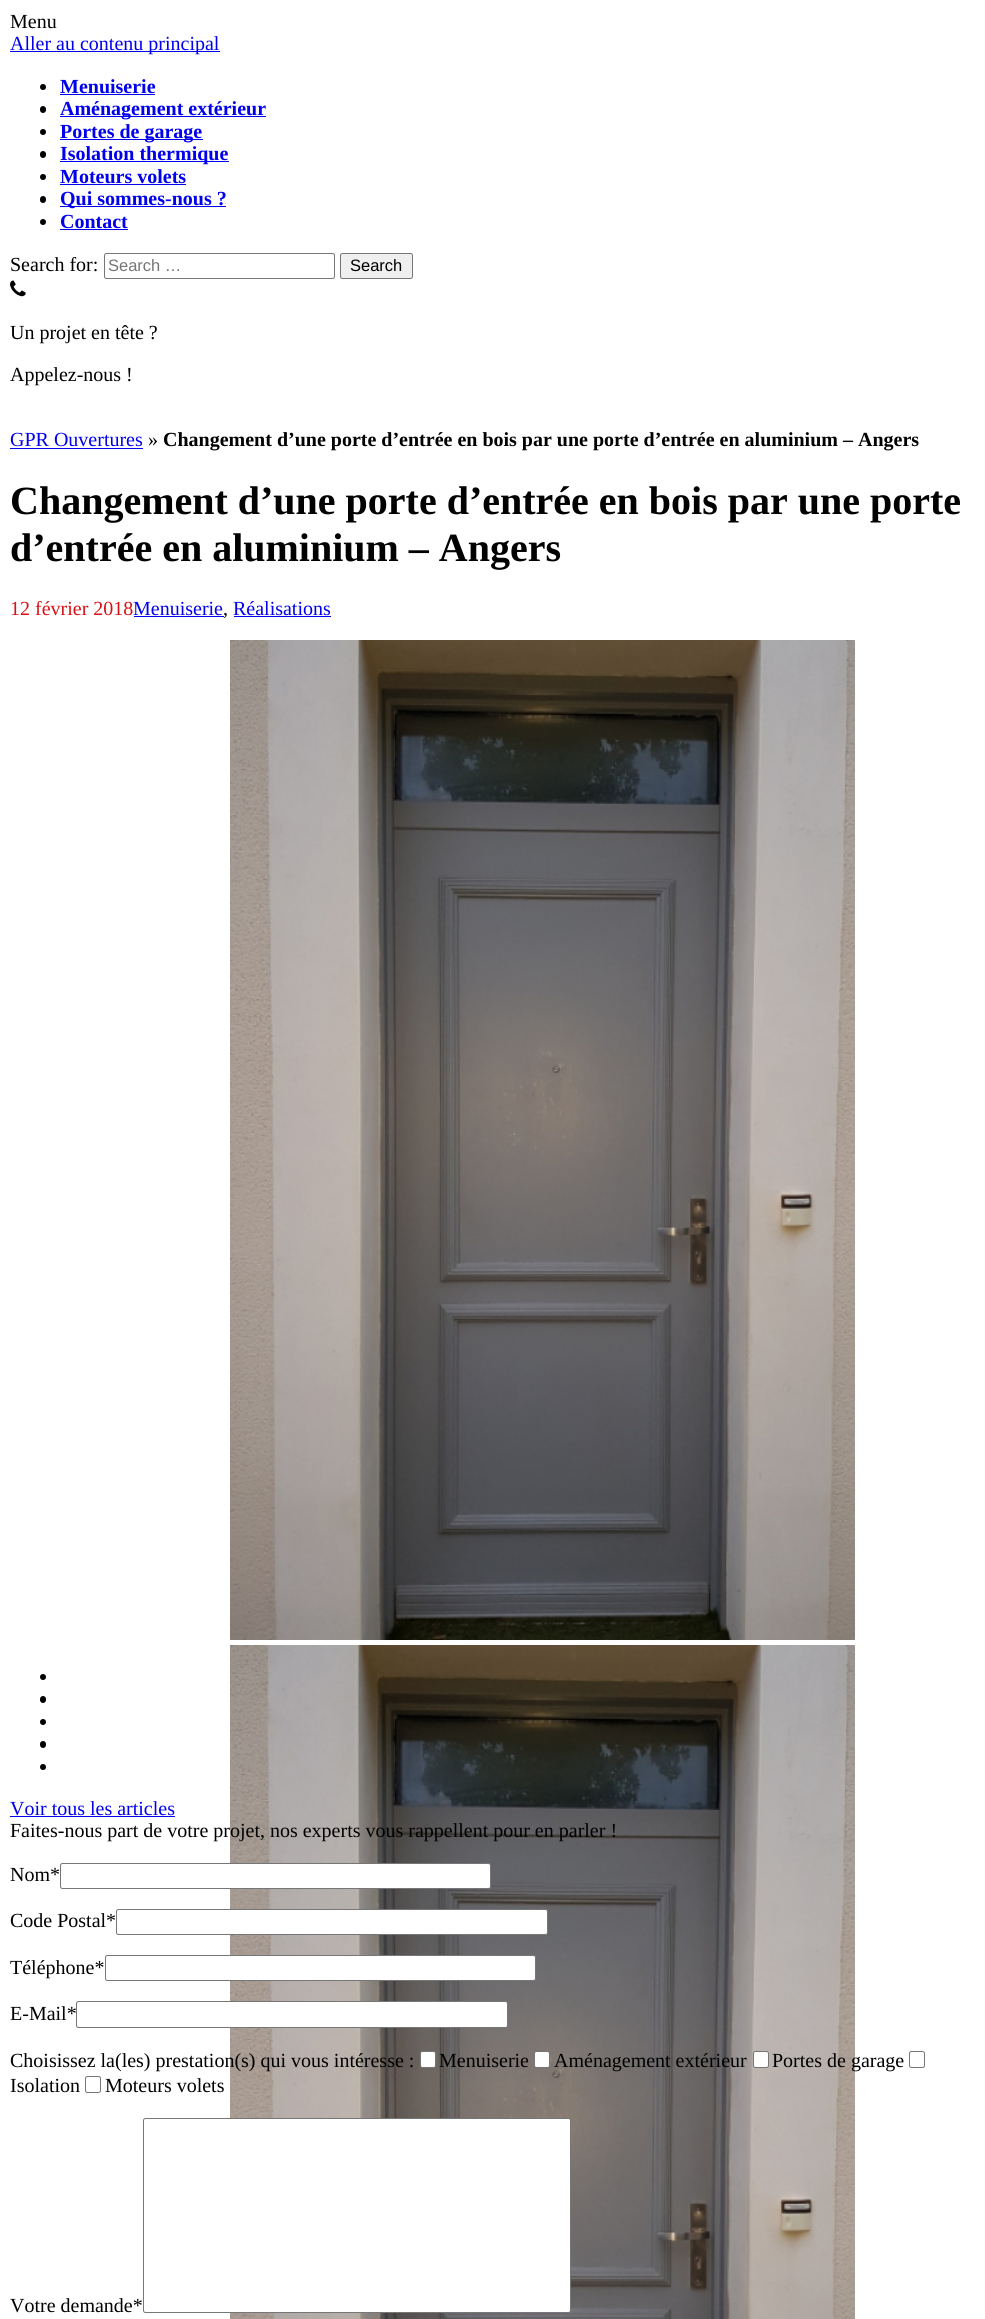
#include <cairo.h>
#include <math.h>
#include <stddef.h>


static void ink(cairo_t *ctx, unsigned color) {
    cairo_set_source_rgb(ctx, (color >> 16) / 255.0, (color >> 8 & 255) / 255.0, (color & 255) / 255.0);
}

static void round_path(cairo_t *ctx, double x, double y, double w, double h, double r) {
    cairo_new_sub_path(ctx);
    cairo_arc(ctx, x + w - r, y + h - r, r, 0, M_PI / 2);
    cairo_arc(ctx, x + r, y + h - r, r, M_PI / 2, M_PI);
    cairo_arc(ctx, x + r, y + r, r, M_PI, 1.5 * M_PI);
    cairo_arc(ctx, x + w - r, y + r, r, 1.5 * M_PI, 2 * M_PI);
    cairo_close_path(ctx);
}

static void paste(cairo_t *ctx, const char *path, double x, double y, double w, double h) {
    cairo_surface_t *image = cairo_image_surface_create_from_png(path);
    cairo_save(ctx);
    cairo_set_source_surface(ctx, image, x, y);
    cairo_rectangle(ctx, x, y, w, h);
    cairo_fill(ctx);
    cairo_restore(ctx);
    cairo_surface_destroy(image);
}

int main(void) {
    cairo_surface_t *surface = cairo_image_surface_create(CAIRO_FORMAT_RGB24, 985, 2319);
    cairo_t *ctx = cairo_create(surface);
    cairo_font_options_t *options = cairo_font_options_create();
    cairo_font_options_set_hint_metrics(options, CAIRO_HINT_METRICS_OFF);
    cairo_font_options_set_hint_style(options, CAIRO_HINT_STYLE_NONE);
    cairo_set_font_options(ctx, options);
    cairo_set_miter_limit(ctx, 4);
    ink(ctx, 0xFFFFFF);
    cairo_paint(ctx);
    cairo_select_font_face(ctx, "Liberation Serif", CAIRO_FONT_SLANT_NORMAL, CAIRO_FONT_WEIGHT_NORMAL);
    cairo_set_font_size(ctx, 20);
    ink(ctx, 0x000000);
    cairo_move_to(ctx, 10, 28);
    cairo_show_text(ctx, "Menu");
    ink(ctx, 0x0000EE);
    cairo_rectangle(ctx, 10, 51, 210, 1);
    cairo_fill(ctx);
    cairo_move_to(ctx, 10, 50);
    cairo_show_text(ctx, "Aller au contenu principal");
    ink(ctx, 0x000000);
    cairo_new_path(ctx);
    cairo_arc(ctx, 43, 87, 3, 0, 2 * M_PI);
    cairo_fill(ctx);
    cairo_select_font_face(ctx, "Liberation Serif", CAIRO_FONT_SLANT_NORMAL, CAIRO_FONT_WEIGHT_BOLD);
    ink(ctx, 0x0000EE);
    cairo_move_to(ctx, 60, 93);
    cairo_show_text(ctx, "Menuiserie");
    cairo_rectangle(ctx, 60, 94, 95, 1);
    cairo_fill(ctx);
    ink(ctx, 0x000000);
    round_path(ctx, 40, 106, 6, 7, 3);
    cairo_fill(ctx);
    ink(ctx, 0x0000EE);
    cairo_rectangle(ctx, 60, 116, 206, 1);
    cairo_fill(ctx);
    cairo_move_to(ctx, 60, 115);
    cairo_show_text(ctx, "Aménagement extérieur");
    ink(ctx, 0x000000);
    cairo_new_path(ctx);
    cairo_arc(ctx, 43, 132, 3, 0, 2 * M_PI);
    cairo_fill(ctx);
    ink(ctx, 0x0000EE);
    cairo_rectangle(ctx, 60, 139, 143, 1);
    cairo_fill(ctx);
    cairo_move_to(ctx, 60, 138);
    cairo_show_text(ctx, "Portes de garage");
    ink(ctx, 0x000000);
    round_path(ctx, 40, 151, 6, 7, 3);
    cairo_fill(ctx);
    ink(ctx, 0x0000EE);
    cairo_rectangle(ctx, 60, 161, 169, 1);
    cairo_fill(ctx);
    cairo_move_to(ctx, 60, 160);
    cairo_show_text(ctx, "Isolation thermique");
    ink(ctx, 0x000000);
    cairo_new_path(ctx);
    cairo_arc(ctx, 43, 177, 3, 0, 2 * M_PI);
    cairo_fill(ctx);
    ink(ctx, 0x0000EE);
    cairo_move_to(ctx, 60, 183);
    cairo_show_text(ctx, "Moteurs volets");
    cairo_rectangle(ctx, 60, 184, 126, 1);
    cairo_fill(ctx);
    ink(ctx, 0x000000);
    round_path(ctx, 40, 196, 6, 7, 3);
    cairo_fill(ctx);
    ink(ctx, 0x0000EE);
    cairo_rectangle(ctx, 60, 206, 166, 1);
    cairo_fill(ctx);
    cairo_move_to(ctx, 60, 205);
    cairo_show_text(ctx, "Qui sommes-nous ?");
    ink(ctx, 0x000000);
    cairo_new_path(ctx);
    cairo_arc(ctx, 43, 222, 3, 0, 2 * M_PI);
    cairo_fill(ctx);
    ink(ctx, 0x0000EE);
    cairo_move_to(ctx, 60, 228);
    cairo_show_text(ctx, "Contact");
    cairo_rectangle(ctx, 60, 229, 68, 1);
    cairo_fill(ctx);
    cairo_select_font_face(ctx, "Liberation Serif", CAIRO_FONT_SLANT_NORMAL, CAIRO_FONT_WEIGHT_NORMAL);
    ink(ctx, 0x000000);
    cairo_move_to(ctx, 10, 271);
    cairo_show_text(ctx, "Search for:");
    round_path(ctx, 104.5, 253.5, 230, 25, 2);
    ink(ctx, 0x767676);
    cairo_set_line_width(ctx, 1);
    cairo_stroke(ctx);
    cairo_select_font_face(ctx, "Liberation Sans", CAIRO_FONT_SLANT_NORMAL, CAIRO_FONT_WEIGHT_NORMAL);
    cairo_set_font_size(ctx, 16.5);
    ink(ctx, 0x757575);
    cairo_move_to(ctx, 108, 271);
    cairo_show_text(ctx, "Search …");
    ink(ctx, 0xEFEFEF);
    round_path(ctx, 340.5, 253.5, 72, 25, 2);
    cairo_fill_preserve(ctx);
    ink(ctx, 0x767676);
    cairo_stroke(ctx);
    ink(ctx, 0x000000);
    cairo_move_to(ctx, 350, 271);
    cairo_show_text(ctx, "Search");
    paste(ctx, "media/1.png", 10, 280, 16, 17);
    cairo_select_font_face(ctx, "Liberation Serif", CAIRO_FONT_SLANT_NORMAL, CAIRO_FONT_WEIGHT_NORMAL);
    cairo_set_font_size(ctx, 20);
    cairo_move_to(ctx, 10, 339);
    cairo_show_text(ctx, "Un projet en tête ?");
    cairo_move_to(ctx, 10, 381);
    cairo_show_text(ctx, "Appelez-nous !");
    ink(ctx, 0x0000EE);
    cairo_move_to(ctx, 10, 446);
    cairo_show_text(ctx, "GPR Ouvertures");
    cairo_rectangle(ctx, 10, 448, 133, 1);
    cairo_fill(ctx);
    ink(ctx, 0x000000);
    cairo_move_to(ctx, 148, 446);
    cairo_show_text(ctx, "»");
    cairo_select_font_face(ctx, "Liberation Serif", CAIRO_FONT_SLANT_NORMAL, CAIRO_FONT_WEIGHT_BOLD);
    cairo_move_to(ctx, 163, 446);
    cairo_show_text(ctx, "Changement d’une porte d’entrée en bois par une porte d’entrée en aluminium – Angers");
    cairo_set_font_size(ctx, 40);
    cairo_move_to(ctx, 10, 514);
    cairo_show_text(ctx, "Changement d’une porte d’entrée en bois par une porte");
    cairo_move_to(ctx, 10, 561);
    cairo_show_text(ctx, "d’entrée en aluminium – Angers");
    cairo_select_font_face(ctx, "Liberation Serif", CAIRO_FONT_SLANT_NORMAL, CAIRO_FONT_WEIGHT_NORMAL);
    cairo_set_font_size(ctx, 20);
    ink(ctx, 0xD81116);
    cairo_move_to(ctx, 10, 615);
    cairo_show_text(ctx, "12 février 2018");
    ink(ctx, 0x0000EE);
    cairo_move_to(ctx, 133, 615);
    cairo_show_text(ctx, "Menuiserie");
    ink(ctx, 0x000000);
    cairo_move_to(ctx, 223, 615);
    cairo_show_text(ctx, ",");
    ink(ctx, 0x0000EE);
    cairo_rectangle(ctx, 134, 616, 90, 1);
    cairo_fill(ctx);
    cairo_rectangle(ctx, 234, 616, 97, 1);
    cairo_fill(ctx);
    cairo_move_to(ctx, 233, 615);
    cairo_show_text(ctx, "Réalisations");
    ink(ctx, 0x000000);
    cairo_new_path(ctx);
    cairo_arc(ctx, 43, 1677, 3, 0, 2 * M_PI);
    cairo_fill(ctx);
    round_path(ctx, 40, 1696, 6, 7, 3);
    cairo_fill(ctx);
    cairo_arc(ctx, 43, 1722, 3, 0, 2 * M_PI);
    cairo_fill(ctx);
    round_path(ctx, 40, 1741, 6, 7, 3);
    cairo_fill(ctx);
    cairo_arc(ctx, 43, 1767, 3, 0, 2 * M_PI);
    cairo_fill(ctx);
    ink(ctx, 0x0000EE);
    cairo_move_to(ctx, 10, 1815);
    cairo_show_text(ctx, "Voir tous les articles");
    cairo_rectangle(ctx, 10, 1816, 165, 1);
    cairo_fill(ctx);
    paste(ctx, "media/2.png", 230, 640, 625, 1000);
    paste(ctx, "media/3.png", 230, 1645, 625, 674);
    ink(ctx, 0x000000);
    cairo_move_to(ctx, 10, 1837);
    cairo_show_text(ctx, "Faites-nous part de votre projet, nos experts vous rappellent pour en parler !");
    cairo_move_to(ctx, 10, 1881);
    cairo_show_text(ctx, "Nom*");
    ink(ctx, 0xFFFFFF);
    round_path(ctx, 60.5, 1863.5, 430, 25, 2);
    cairo_fill_preserve(ctx);
    ink(ctx, 0x767676);
    cairo_stroke(ctx);
    ink(ctx, 0x000000);
    cairo_move_to(ctx, 10, 1927);
    cairo_show_text(ctx, "Code Postal*");
    ink(ctx, 0xFFFFFF);
    round_path(ctx, 116.5, 1909.5, 431, 25, 2);
    cairo_fill_preserve(ctx);
    ink(ctx, 0x767676);
    cairo_stroke(ctx);
    ink(ctx, 0x000000);
    cairo_move_to(ctx, 10, 1974);
    cairo_show_text(ctx, "Téléphone*");
    ink(ctx, 0xFFFFFF);
    round_path(ctx, 105.5, 1955.5, 430, 25, 2);
    cairo_fill_preserve(ctx);
    ink(ctx, 0x767676);
    cairo_stroke(ctx);
    ink(ctx, 0x000000);
    cairo_move_to(ctx, 10, 2020);
    cairo_show_text(ctx, "E-Mail*");
    ink(ctx, 0xFFFFFF);
    round_path(ctx, 76.5, 2001.5, 431, 26, 2);
    cairo_fill_preserve(ctx);
    ink(ctx, 0x767676);
    cairo_stroke(ctx);
    ink(ctx, 0x000000);
    cairo_move_to(ctx, 10, 2067);
    cairo_show_text(ctx, "Choisissez la(les) prestation(s) qui vous intéresse :");
    ink(ctx, 0xFFFFFF);
    round_path(ctx, 420.5, 2051.5, 15, 16, 2);
    cairo_fill_preserve(ctx);
    ink(ctx, 0x767676);
    cairo_stroke(ctx);
    ink(ctx, 0x000000);
    cairo_move_to(ctx, 439, 2067);
    cairo_show_text(ctx, "Menuiserie");
    ink(ctx, 0xFFFFFF);
    round_path(ctx, 534.5, 2051.5, 15, 16, 2);
    cairo_fill_preserve(ctx);
    ink(ctx, 0x767676);
    cairo_stroke(ctx);
    ink(ctx, 0x000000);
    cairo_move_to(ctx, 554, 2067);
    cairo_show_text(ctx, "Aménagement extérieur");
    ink(ctx, 0xFFFFFF);
    round_path(ctx, 753.5, 2051.5, 15, 16, 2);
    cairo_fill_preserve(ctx);
    ink(ctx, 0x767676);
    cairo_stroke(ctx);
    ink(ctx, 0x000000);
    cairo_move_to(ctx, 772, 2067);
    cairo_show_text(ctx, "Portes de garage");
    round_path(ctx, 909.5, 2051.5, 15, 16, 2);
    ink(ctx, 0x767676);
    cairo_stroke(ctx);
    ink(ctx, 0x000000);
    cairo_move_to(ctx, 10, 2092);
    cairo_show_text(ctx, "Isolation");
    round_path(ctx, 85.5, 2076.5, 15, 16, 2);
    ink(ctx, 0x767676);
    cairo_stroke(ctx);
    ink(ctx, 0x000000);
    cairo_move_to(ctx, 105, 2092);
    cairo_show_text(ctx, "Moteurs volets");
    cairo_move_to(ctx, 10, 2312);
    cairo_show_text(ctx, "Votre demande*");
    ink(ctx, 0xFFFFFF);
    round_path(ctx, 143.5, 2118.5, 427, 194, 2);
    cairo_fill_preserve(ctx);
    ink(ctx, 0x767676);
    cairo_stroke(ctx);
    cairo_surface_write_to_png(surface, "image.png");
    cairo_font_options_destroy(options);
    cairo_destroy(ctx);
    cairo_surface_destroy(surface);
    return 0;
}
